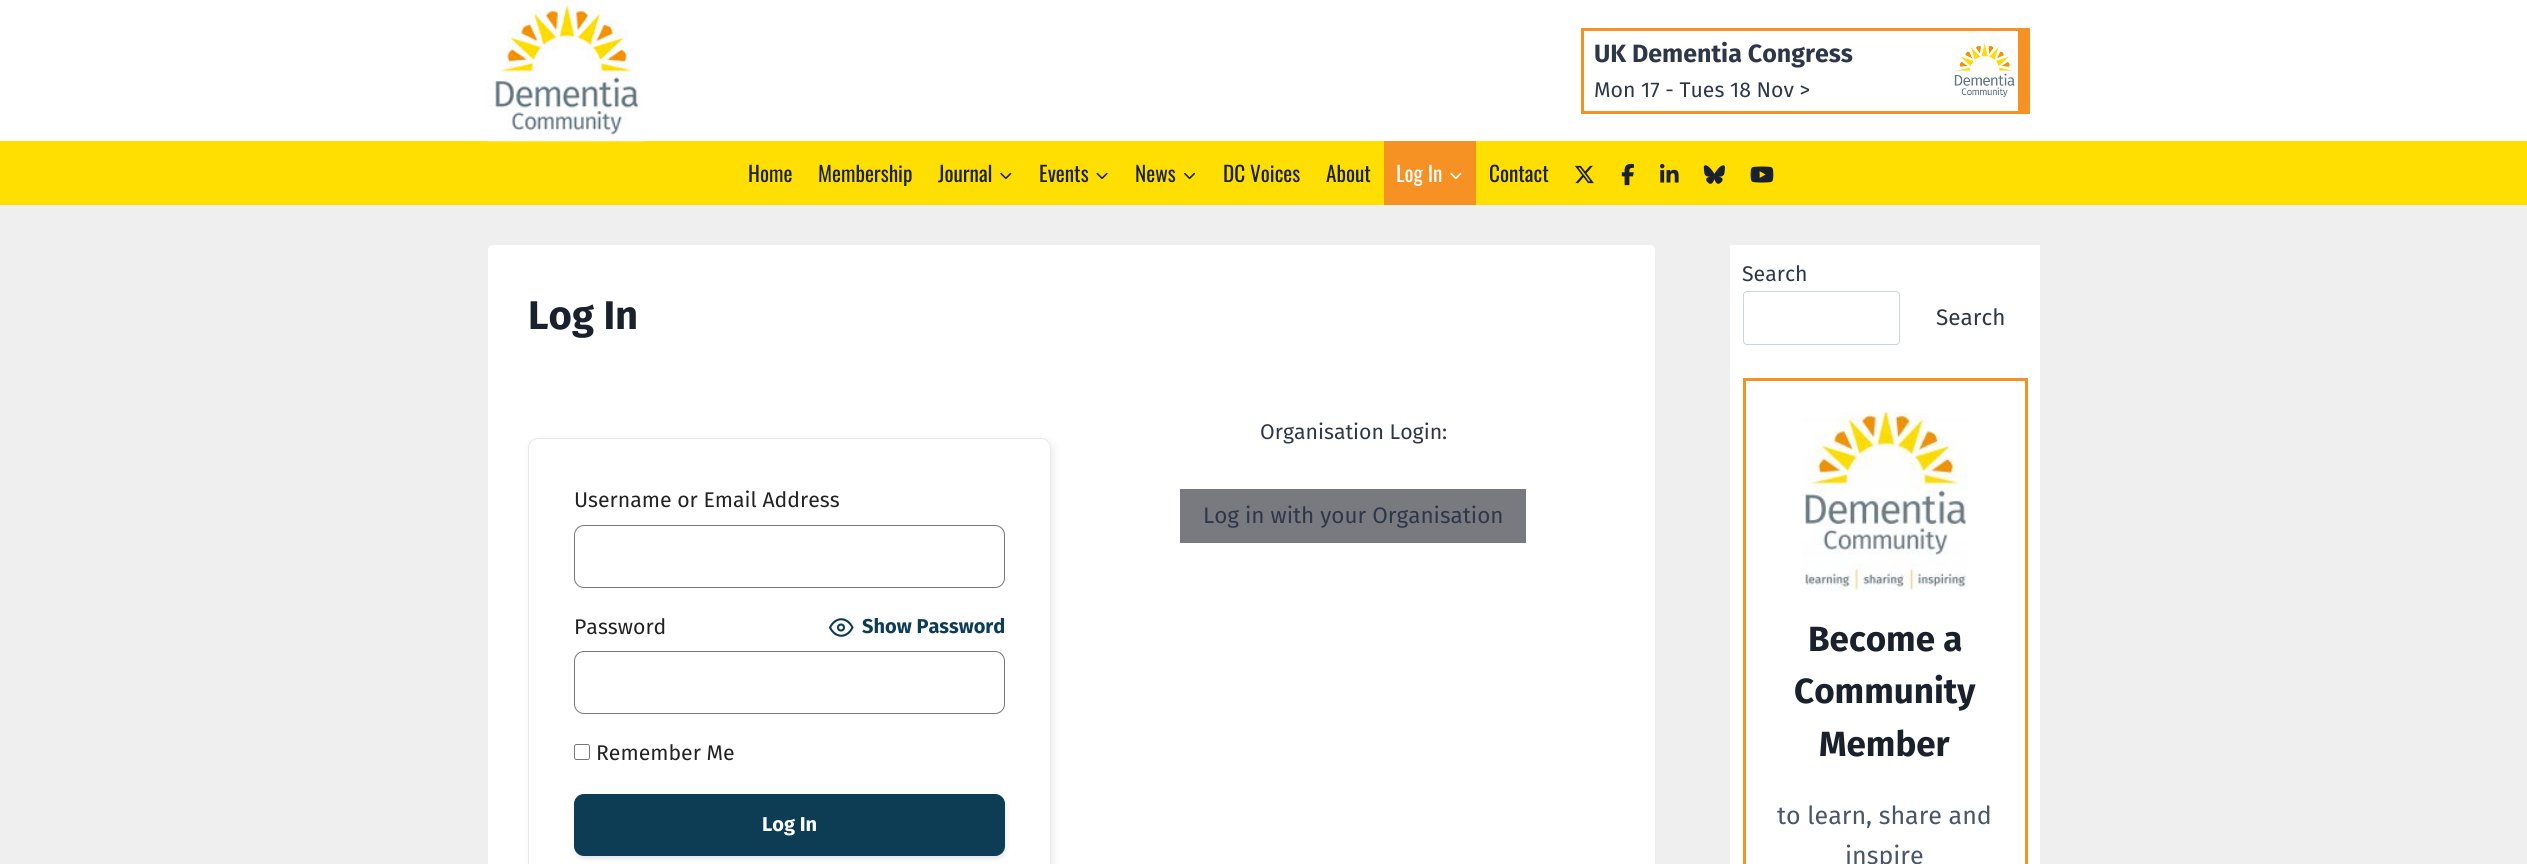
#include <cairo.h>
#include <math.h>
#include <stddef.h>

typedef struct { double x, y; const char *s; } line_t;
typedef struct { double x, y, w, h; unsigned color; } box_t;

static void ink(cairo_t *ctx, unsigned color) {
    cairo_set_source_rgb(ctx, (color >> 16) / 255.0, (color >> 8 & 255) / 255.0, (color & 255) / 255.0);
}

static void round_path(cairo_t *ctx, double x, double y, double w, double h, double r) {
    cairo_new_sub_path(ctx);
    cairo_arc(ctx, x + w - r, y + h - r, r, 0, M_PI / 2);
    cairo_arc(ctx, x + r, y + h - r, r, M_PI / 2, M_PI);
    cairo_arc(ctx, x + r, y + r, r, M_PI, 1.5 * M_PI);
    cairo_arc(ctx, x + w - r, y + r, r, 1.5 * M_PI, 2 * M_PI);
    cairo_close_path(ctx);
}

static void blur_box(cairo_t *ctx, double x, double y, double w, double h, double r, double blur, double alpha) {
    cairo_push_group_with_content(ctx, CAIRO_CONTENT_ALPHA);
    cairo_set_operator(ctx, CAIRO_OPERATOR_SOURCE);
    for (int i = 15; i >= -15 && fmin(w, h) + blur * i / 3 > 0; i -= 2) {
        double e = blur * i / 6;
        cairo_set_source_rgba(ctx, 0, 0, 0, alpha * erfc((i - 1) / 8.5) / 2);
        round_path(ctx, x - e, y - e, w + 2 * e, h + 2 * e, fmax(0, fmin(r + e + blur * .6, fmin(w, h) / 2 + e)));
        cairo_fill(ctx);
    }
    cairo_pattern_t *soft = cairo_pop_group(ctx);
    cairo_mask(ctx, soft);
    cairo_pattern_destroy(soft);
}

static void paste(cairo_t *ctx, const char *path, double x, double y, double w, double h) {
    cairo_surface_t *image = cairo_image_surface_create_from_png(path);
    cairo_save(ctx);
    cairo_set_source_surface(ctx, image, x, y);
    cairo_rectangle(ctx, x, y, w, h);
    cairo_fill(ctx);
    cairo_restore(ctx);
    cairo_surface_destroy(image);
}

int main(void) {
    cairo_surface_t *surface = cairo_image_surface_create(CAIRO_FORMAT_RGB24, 2527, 864);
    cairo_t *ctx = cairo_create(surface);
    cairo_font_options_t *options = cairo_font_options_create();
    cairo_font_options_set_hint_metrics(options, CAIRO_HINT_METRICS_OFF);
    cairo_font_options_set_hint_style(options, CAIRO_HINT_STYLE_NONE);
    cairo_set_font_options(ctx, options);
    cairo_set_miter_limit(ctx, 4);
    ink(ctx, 0xEFEFEF);
    cairo_paint(ctx);
    ink(ctx, 0xFFFFFF);
    cairo_rectangle(ctx, 0, 0, 2527, 141);
    cairo_fill(ctx);
    ink(ctx, 0xFFDF01);
    cairo_rectangle(ctx, 0, 141, 2527, 64);
    cairo_fill(ctx);
    paste(ctx, "media/1.png", 487, 0, 158, 142);
    {
        static const box_t items[] = {
            {1581, 28, 437, 3, 0xF69123},
            {2018, 28, 12, 83, 0xF69123},
            {1581, 111, 449, 3, 0xF69123},
            {1581, 28, 3, 86, 0xF69123},
        };
        for (size_t i = 0; i < sizeof items / sizeof *items; i++) {
            ink(ctx, items[i].color);
            cairo_rectangle(ctx, items[i].x, items[i].y, items[i].w, items[i].h);
            cairo_fill(ctx);
        }
    }
    cairo_select_font_face(ctx, "Fira Sans", CAIRO_FONT_SLANT_NORMAL, CAIRO_FONT_WEIGHT_BOLD);
    cairo_set_font_size(ctx, 25);
    ink(ctx, 0x2D3748);
    cairo_move_to(ctx, 1594, 62);
    cairo_show_text(ctx, "UK Dementia Congress");
    cairo_select_font_face(ctx, "Fira Sans", CAIRO_FONT_SLANT_NORMAL, CAIRO_FONT_WEIGHT_NORMAL);
    cairo_set_font_size(ctx, 21.25);
    cairo_move_to(ctx, 1594, 97);
    cairo_show_text(ctx, "Mon 17 - Tues 18 Nov >");
    paste(ctx, "media/2.png", 1951, 41, 64, 57);
    cairo_select_font_face(ctx, "Oswald", CAIRO_FONT_SLANT_NORMAL, CAIRO_FONT_WEIGHT_NORMAL);
    ink(ctx, 0x1A202C);
    {
        static const line_t items[] = {
            {748, 182, "Home"},
            {818, 182, "Membership"},
            {938, 182, "Journal"},
        };
        for (size_t i = 0; i < sizeof items / sizeof *items; i++) {
            cairo_move_to(ctx, items[i].x, items[i].y);
            cairo_show_text(ctx, items[i].s);
        }
    }
    paste(ctx, "media/3.png", 1000, 172, 12, 8);
    cairo_move_to(ctx, 1039, 182);
    cairo_show_text(ctx, "Events");
    paste(ctx, "media/4.png", 1096, 172, 12, 8);
    cairo_move_to(ctx, 1135, 182);
    cairo_show_text(ctx, "News");
    paste(ctx, "media/5.png", 1184, 172, 12, 8);
    cairo_move_to(ctx, 1223, 182);
    cairo_show_text(ctx, "DC Voices");
    cairo_move_to(ctx, 1326, 182);
    cairo_show_text(ctx, "About");
    ink(ctx, 0xF69123);
    cairo_rectangle(ctx, 1384, 141, 92, 64);
    cairo_fill(ctx);
    ink(ctx, 0xFFFFFF);
    cairo_move_to(ctx, 1396, 182);
    cairo_show_text(ctx, "Log In");
    paste(ctx, "media/6.png", 1450, 172, 12, 8);
    ink(ctx, 0x1A202C);
    cairo_move_to(ctx, 1489, 182);
    cairo_show_text(ctx, "Contact");
    paste(ctx, "media/7.png", 1575, 165, 19, 19);
    paste(ctx, "media/8.png", 1621, 163, 13, 23);
    paste(ctx, "media/9.png", 1660, 163, 19, 20);
    paste(ctx, "media/10.png", 1703, 165, 22, 19);
    paste(ctx, "media/11.png", 1750, 166, 24, 17);
    ink(ctx, 0xFFFFFF);
    round_path(ctx, 488, 245, 1167, 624, 5);
    cairo_fill(ctx);
    cairo_select_font_face(ctx, "Fira Sans", CAIRO_FONT_SLANT_NORMAL, CAIRO_FONT_WEIGHT_BOLD);
    cairo_set_font_size(ctx, 40);
    ink(ctx, 0x1A202C);
    cairo_move_to(ctx, 528, 329);
    cairo_show_text(ctx, "Log In");
    cairo_select_font_face(ctx, "Fira Sans", CAIRO_FONT_SLANT_NORMAL, CAIRO_FONT_WEIGHT_NORMAL);
    cairo_set_font_size(ctx, 21.25);
    ink(ctx, 0x2D3748);
    cairo_move_to(ctx, 1260, 439);
    cairo_show_text(ctx, "Organisation Login:");
    ink(ctx, 0x797980);
    cairo_rectangle(ctx, 1180, 489, 346, 54);
    cairo_fill(ctx);
    cairo_set_font_size(ctx, 22.5);
    ink(ctx, 0x2D3748);
    cairo_move_to(ctx, 1203, 523);
    cairo_show_text(ctx, "Log in with your Organisation");
    cairo_save(ctx);
    cairo_set_fill_rule(ctx, CAIRO_FILL_RULE_EVEN_ODD);
    cairo_new_path(ctx);
    cairo_move_to(ctx, 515, 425);
    cairo_line_to(ctx, 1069, 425);
    cairo_line_to(ctx, 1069, 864);
    cairo_line_to(ctx, 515, 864);
    cairo_close_path(ctx);
    cairo_move_to(ctx, 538, 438);
    cairo_line_to(ctx, 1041, 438);
    cairo_curve_to(ctx, 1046.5, 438, 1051, 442.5, 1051, 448);
    cairo_line_to(ctx, 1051, 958);
    cairo_curve_to(ctx, 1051, 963.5, 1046.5, 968, 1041, 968);
    cairo_line_to(ctx, 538, 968);
    cairo_curve_to(ctx, 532.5, 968, 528, 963.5, 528, 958);
    cairo_line_to(ctx, 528, 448);
    cairo_curve_to(ctx, 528, 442.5, 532.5, 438, 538, 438);
    cairo_close_path(ctx);
    cairo_clip(ctx);
    ink(ctx, 0x000000);
    blur_box(ctx, 530, 440, 524, 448, 10, 4.5, 0.07);
    cairo_restore(ctx);
    round_path(ctx, 528.5, 438.5, 522, 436, 9.5);
    ink(ctx, 0xE8E8E8);
    cairo_set_line_width(ctx, 1);
    cairo_stroke(ctx);
    cairo_set_font_size(ctx, 21.25);
    ink(ctx, 0x222222);
    cairo_move_to(ctx, 574, 507);
    cairo_show_text(ctx, "Username or Email Address");
    round_path(ctx, 574.5, 525.5, 430, 62, 9.5);
    ink(ctx, 0x777777);
    cairo_stroke(ctx);
    ink(ctx, 0x222222);
    cairo_move_to(ctx, 574, 634);
    cairo_show_text(ctx, "Password");
    cairo_new_path(ctx);
    cairo_move_to(ctx, 830, 627.5);
    cairo_curve_to(ctx, 835.5, 616.5, 847, 616.5, 852.5, 627.5);
    cairo_curve_to(ctx, 847, 638.5, 835.5, 638.5, 830, 627.5);
    cairo_close_path(ctx);
    ink(ctx, 0x0C3D54);
    cairo_set_line_width(ctx, 2.1);
    cairo_set_line_cap(ctx, CAIRO_LINE_CAP_ROUND);
    cairo_set_line_join(ctx, CAIRO_LINE_JOIN_ROUND);
    cairo_stroke(ctx);
    cairo_arc(ctx, 841, 627.5, 3, 0, 2 * M_PI);
    cairo_set_line_cap(ctx, CAIRO_LINE_CAP_BUTT);
    cairo_set_line_join(ctx, CAIRO_LINE_JOIN_MITER);
    cairo_stroke(ctx);
    cairo_select_font_face(ctx, "Fira Sans", CAIRO_FONT_SLANT_NORMAL, CAIRO_FONT_WEIGHT_BOLD);
    cairo_set_font_size(ctx, 20);
    cairo_move_to(ctx, 862, 633);
    cairo_show_text(ctx, "Show Password");
    round_path(ctx, 574.5, 651.5, 430, 62, 9.5);
    ink(ctx, 0x777777);
    cairo_set_line_width(ctx, 1);
    cairo_stroke(ctx);
    round_path(ctx, 574.5, 744.5, 15, 15, 2);
    ink(ctx, 0x767676);
    cairo_stroke(ctx);
    cairo_select_font_face(ctx, "Fira Sans", CAIRO_FONT_SLANT_NORMAL, CAIRO_FONT_WEIGHT_NORMAL);
    cairo_set_font_size(ctx, 21.25);
    ink(ctx, 0x222222);
    cairo_move_to(ctx, 596, 760);
    cairo_show_text(ctx, "Remember Me");
    ink(ctx, 0x000000);
    blur_box(ctx, 575, 796, 431, 63, 10, 2.5, 0.1);
    ink(ctx, 0x0C3D54);
    round_path(ctx, 574.5, 794.5, 430, 61, 9.5);
    cairo_fill_preserve(ctx);
    cairo_stroke(ctx);
    cairo_select_font_face(ctx, "Fira Sans", CAIRO_FONT_SLANT_NORMAL, CAIRO_FONT_WEIGHT_BOLD);
    cairo_set_font_size(ctx, 20);
    ink(ctx, 0xFFFFFF);
    cairo_move_to(ctx, 762, 831);
    cairo_show_text(ctx, "Log In");
    cairo_rectangle(ctx, 1730, 245, 310, 619);
    cairo_fill(ctx);
    cairo_select_font_face(ctx, "Fira Sans", CAIRO_FONT_SLANT_NORMAL, CAIRO_FONT_WEIGHT_NORMAL);
    cairo_set_font_size(ctx, 21.25);
    ink(ctx, 0x2D3748);
    cairo_move_to(ctx, 1742, 281);
    cairo_show_text(ctx, "Search");
    round_path(ctx, 1743.5, 291.5, 156, 53, 3.5);
    ink(ctx, 0xCBD5E0);
    cairo_stroke(ctx);
    cairo_set_font_size(ctx, 22.5);
    ink(ctx, 0x2D3748);
    cairo_move_to(ctx, 1936, 325);
    cairo_show_text(ctx, "Search");
    {
        static const box_t items[] = {
            {1743, 378, 285, 3, 0xF69123},
            {2025, 378, 3, 486, 0xF69123},
            {1743, 378, 3, 486, 0xF69123},
        };
        for (size_t i = 0; i < sizeof items / sizeof *items; i++) {
            ink(ctx, items[i].color);
            cairo_rectangle(ctx, items[i].x, items[i].y, items[i].w, items[i].h);
            cairo_fill(ctx);
        }
    }
    paste(ctx, "media/12.png", 1802, 412, 166, 178);
    cairo_select_font_face(ctx, "Fira Sans", CAIRO_FONT_SLANT_NORMAL, CAIRO_FONT_WEIGHT_BOLD);
    cairo_set_font_size(ctx, 35);
    ink(ctx, 0x1A202C);
    {
        static const line_t items[] = {
            {1808, 651, "Become a"},
            {1794, 703, "Community"},
            {1819, 756, "Member"},
        };
        for (size_t i = 0; i < sizeof items / sizeof *items; i++) {
            cairo_move_to(ctx, items[i].x, items[i].y);
            cairo_show_text(ctx, items[i].s);
        }
    }
    cairo_select_font_face(ctx, "Fira Sans", CAIRO_FONT_SLANT_NORMAL, CAIRO_FONT_WEIGHT_NORMAL);
    cairo_set_font_size(ctx, 25);
    ink(ctx, 0x4A5568);
    cairo_move_to(ctx, 1777, 824);
    cairo_show_text(ctx, "to learn, share and");
    cairo_move_to(ctx, 1845, 864);
    cairo_show_text(ctx, "inspire");
    cairo_surface_write_to_png(surface, "image.png");
    cairo_font_options_destroy(options);
    cairo_destroy(ctx);
    cairo_surface_destroy(surface);
    return 0;
}
